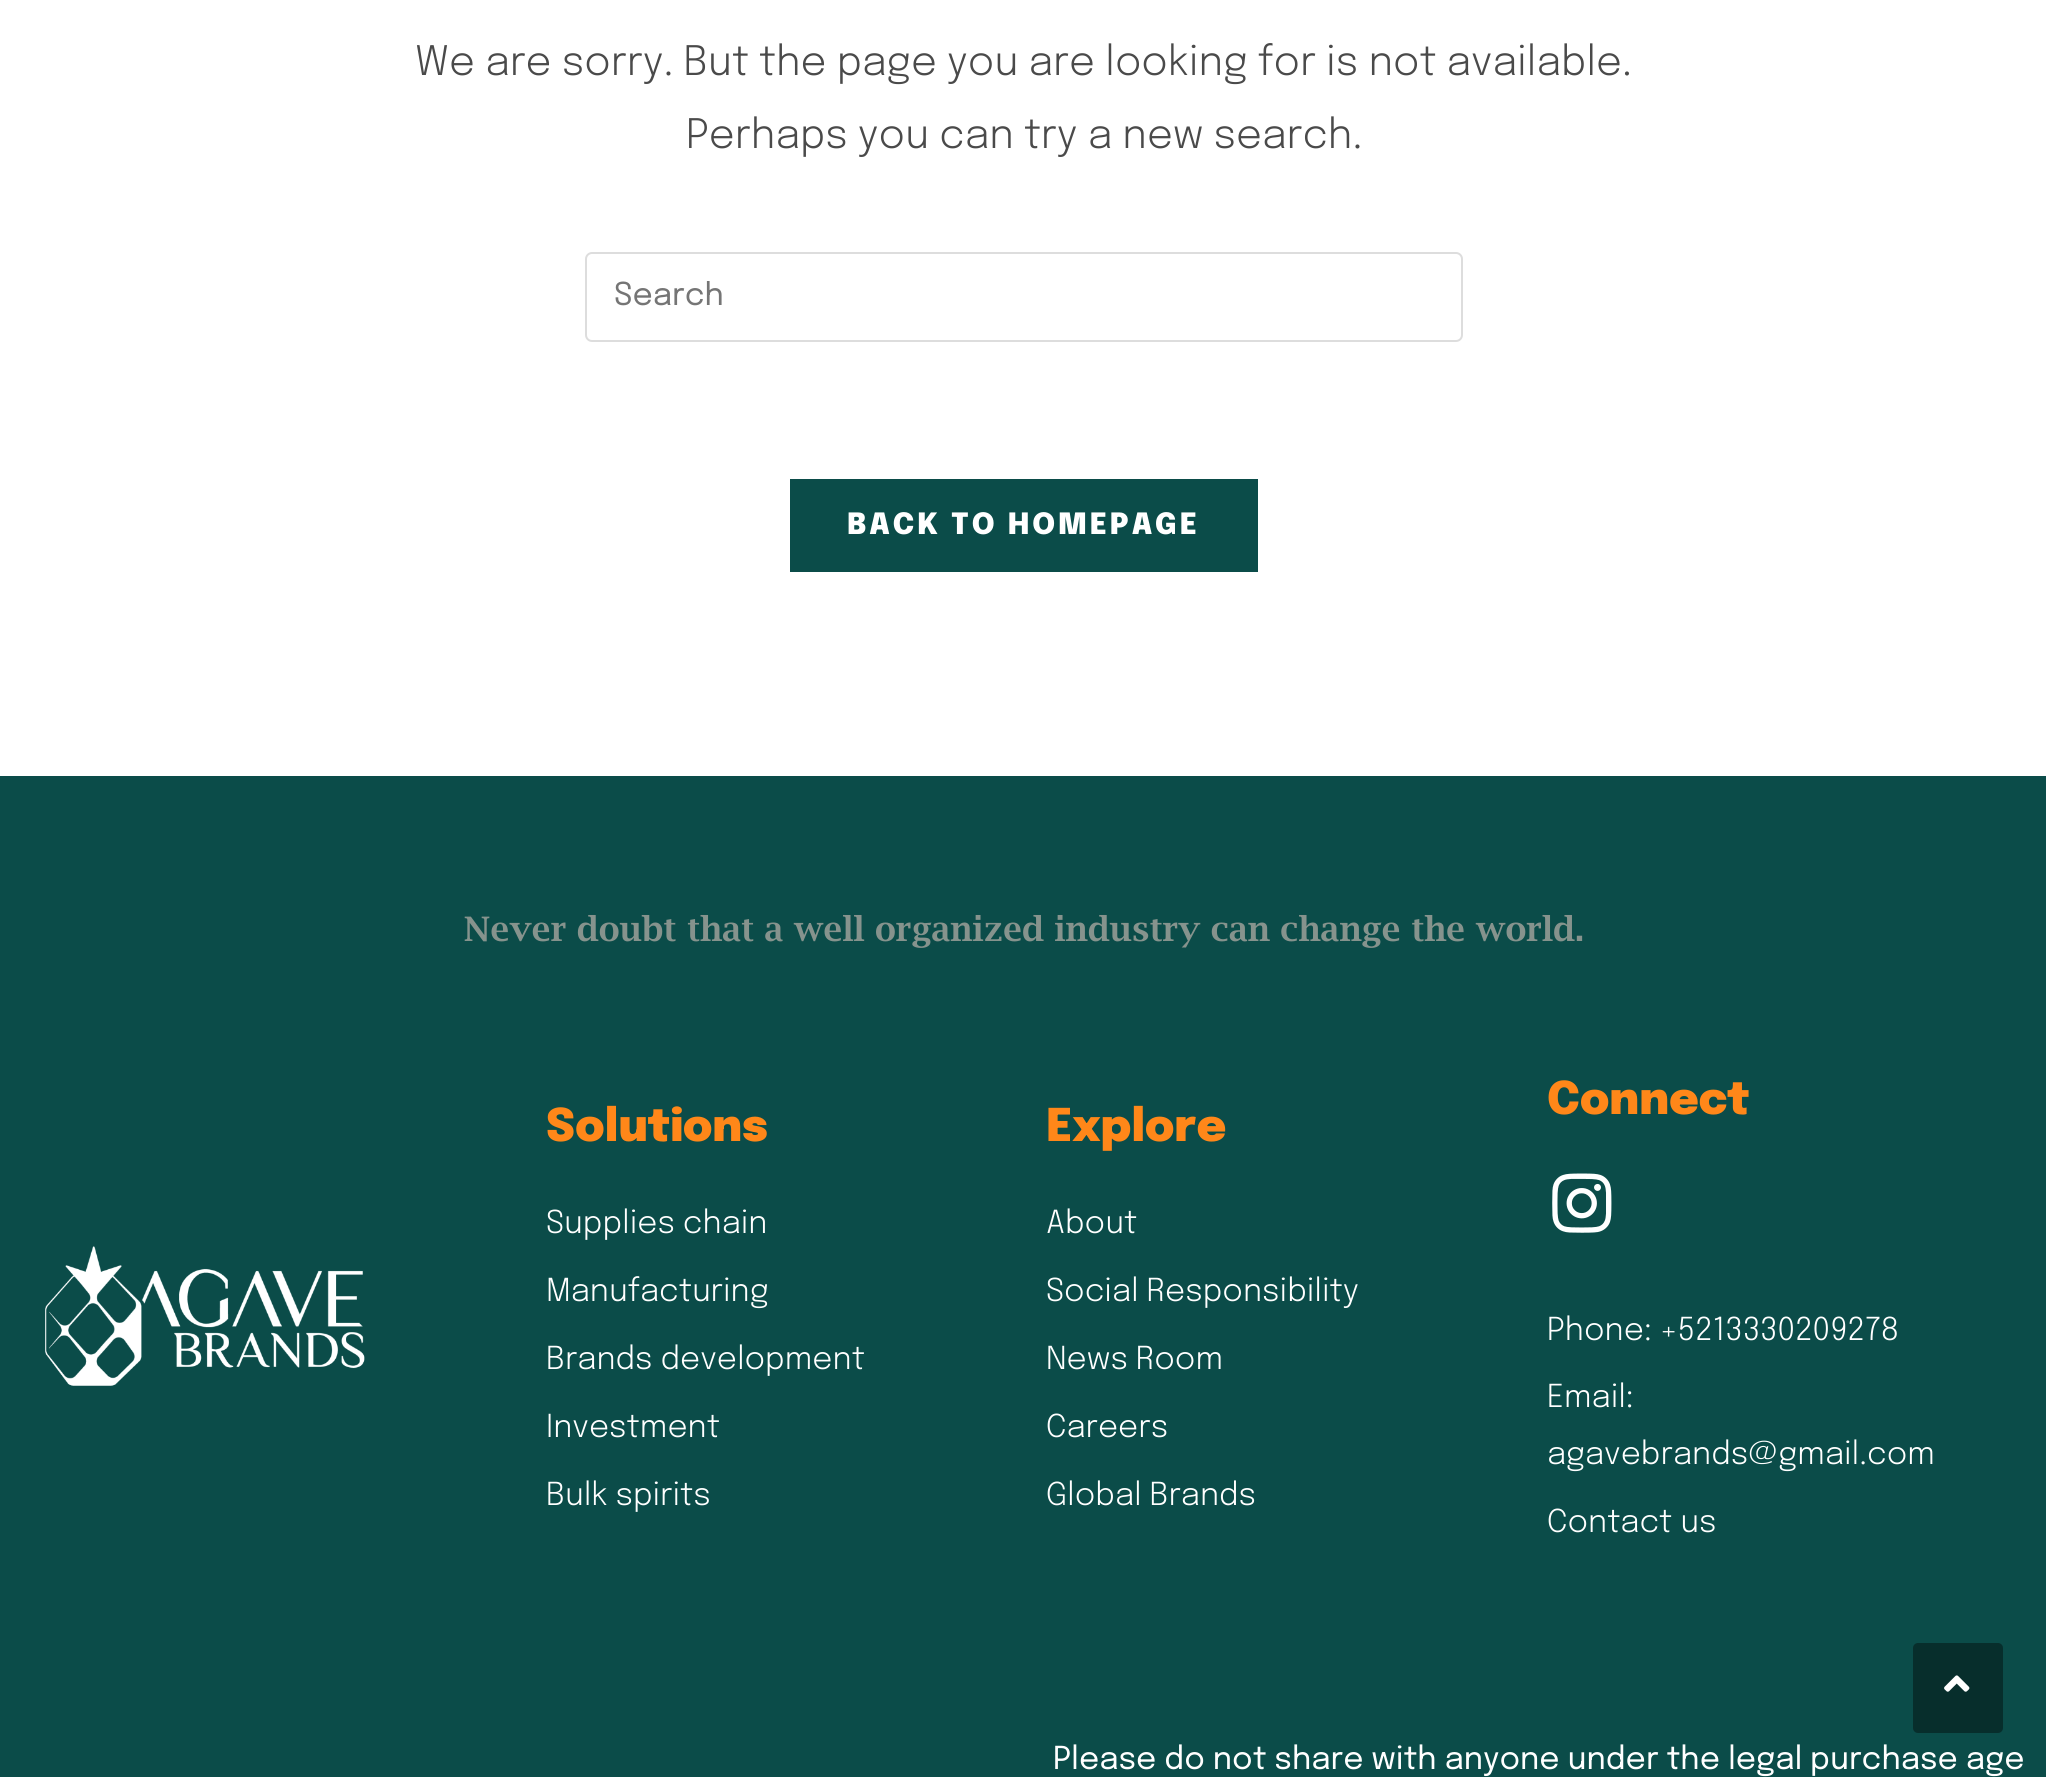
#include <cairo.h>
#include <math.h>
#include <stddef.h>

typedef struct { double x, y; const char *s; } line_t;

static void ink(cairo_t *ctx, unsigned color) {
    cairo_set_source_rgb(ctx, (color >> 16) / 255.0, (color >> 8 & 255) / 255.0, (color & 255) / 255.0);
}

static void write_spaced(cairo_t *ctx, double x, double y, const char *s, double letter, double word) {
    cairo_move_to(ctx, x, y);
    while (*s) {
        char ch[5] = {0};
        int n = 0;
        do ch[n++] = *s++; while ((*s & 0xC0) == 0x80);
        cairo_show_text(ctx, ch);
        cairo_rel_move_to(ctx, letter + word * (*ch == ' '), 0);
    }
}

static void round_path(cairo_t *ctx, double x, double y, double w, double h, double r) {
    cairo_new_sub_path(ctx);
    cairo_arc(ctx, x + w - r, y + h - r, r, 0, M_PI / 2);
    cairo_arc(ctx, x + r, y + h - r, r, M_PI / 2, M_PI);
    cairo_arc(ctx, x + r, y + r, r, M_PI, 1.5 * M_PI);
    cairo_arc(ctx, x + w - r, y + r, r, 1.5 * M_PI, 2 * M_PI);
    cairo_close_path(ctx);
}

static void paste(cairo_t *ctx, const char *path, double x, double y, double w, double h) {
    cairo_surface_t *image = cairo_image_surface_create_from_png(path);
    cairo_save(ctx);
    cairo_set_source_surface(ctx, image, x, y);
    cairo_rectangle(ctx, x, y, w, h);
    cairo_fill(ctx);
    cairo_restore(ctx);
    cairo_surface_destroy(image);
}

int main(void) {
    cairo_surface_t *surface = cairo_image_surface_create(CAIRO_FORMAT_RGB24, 2046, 1777);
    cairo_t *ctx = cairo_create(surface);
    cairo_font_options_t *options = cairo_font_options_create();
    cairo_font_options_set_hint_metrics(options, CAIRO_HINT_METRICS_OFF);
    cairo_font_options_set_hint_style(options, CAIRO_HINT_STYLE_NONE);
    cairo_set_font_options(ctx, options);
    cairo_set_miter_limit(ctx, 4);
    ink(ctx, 0xFFFFFF);
    cairo_paint(ctx);
    cairo_select_font_face(ctx, "Epilogue Light", CAIRO_FONT_SLANT_NORMAL, CAIRO_FONT_WEIGHT_NORMAL);
    cairo_set_font_size(ctx, 40.5);
    ink(ctx, 0x4A4A4A);
    cairo_move_to(ctx, 415, 75);
    cairo_show_text(ctx, "We are sorry. But the page you are looking for is not available.");
    cairo_move_to(ctx, 686, 148);
    cairo_show_text(ctx, "Perhaps you can try a new search.");
    round_path(ctx, 586, 253, 876, 88, 6);
    ink(ctx, 0xDDDDDD);
    cairo_stroke(ctx);
    cairo_save(ctx);
    cairo_rectangle(ctx, 614, 281, 819, 32);
    cairo_clip(ctx);
    cairo_select_font_face(ctx, "Epilogue", CAIRO_FONT_SLANT_NORMAL, CAIRO_FONT_WEIGHT_NORMAL);
    cairo_set_font_size(ctx, 31.5);
    ink(ctx, 0x757575);
    cairo_move_to(ctx, 614, 305);
    cairo_show_text(ctx, "Search");
    cairo_restore(ctx);
    ink(ctx, 0x0B4C49);
    cairo_rectangle(ctx, 790, 479, 468, 93);
    cairo_fill(ctx);
    cairo_select_font_face(ctx, "Epilogue Black", CAIRO_FONT_SLANT_NORMAL, CAIRO_FONT_WEIGHT_NORMAL);
    cairo_set_font_size(ctx, 29.25);
    ink(ctx, 0xFFFFFF);
    write_spaced(ctx, 847, 534, "BACK TO HOMEPAGE", 2.9, 0);
    ink(ctx, 0x0B4C49);
    cairo_rectangle(ctx, 0, 776, 2046, 1001);
    cairo_fill(ctx);
    cairo_select_font_face(ctx, "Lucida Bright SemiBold", CAIRO_FONT_SLANT_NORMAL, CAIRO_FONT_WEIGHT_NORMAL);
    cairo_set_font_size(ctx, 33.75);
    ink(ctx, 0x86938D);
    cairo_move_to(ctx, 464, 941);
    cairo_show_text(ctx, "Never doubt that a well organized industry can change the world.");
    paste(ctx, "media/1.png", 45, 1246, 320, 140);
    cairo_select_font_face(ctx, "Epilogue Black", CAIRO_FONT_SLANT_NORMAL, CAIRO_FONT_WEIGHT_NORMAL);
    cairo_set_font_size(ctx, 45);
    ink(ctx, 0xFF8719);
    cairo_move_to(ctx, 546, 1141);
    cairo_show_text(ctx, "Solutions");
    cairo_select_font_face(ctx, "Epilogue Light", CAIRO_FONT_SLANT_NORMAL, CAIRO_FONT_WEIGHT_NORMAL);
    cairo_set_font_size(ctx, 31.5);
    ink(ctx, 0xFFFFFF);
    {
        static const line_t items[] = {
            {546, 1233, "Supplies chain"},
            {546, 1301, "Manufacturing"},
            {546, 1369, "Brands development"},
            {546, 1437, "Investment"},
            {546, 1505, "Bulk spirits"},
        };
        for (size_t i = 0; i < sizeof items / sizeof *items; i++) {
            cairo_move_to(ctx, items[i].x, items[i].y);
            cairo_show_text(ctx, items[i].s);
        }
    }
    cairo_select_font_face(ctx, "Epilogue Black", CAIRO_FONT_SLANT_NORMAL, CAIRO_FONT_WEIGHT_NORMAL);
    cairo_set_font_size(ctx, 45);
    ink(ctx, 0xFF8719);
    cairo_move_to(ctx, 1046, 1141);
    cairo_show_text(ctx, "Explore");
    cairo_select_font_face(ctx, "Epilogue Light", CAIRO_FONT_SLANT_NORMAL, CAIRO_FONT_WEIGHT_NORMAL);
    cairo_set_font_size(ctx, 31.5);
    ink(ctx, 0xFFFFFF);
    {
        static const line_t items[] = {
            {1046, 1233, "About"},
            {1046, 1301, "Social Responsibility"},
            {1046, 1369, "News Room"},
            {1046, 1437, "Careers"},
            {1046, 1505, "Global Brands"},
        };
        for (size_t i = 0; i < sizeof items / sizeof *items; i++) {
            cairo_move_to(ctx, items[i].x, items[i].y);
            cairo_show_text(ctx, items[i].s);
        }
    }
    cairo_select_font_face(ctx, "Epilogue Black", CAIRO_FONT_SLANT_NORMAL, CAIRO_FONT_WEIGHT_NORMAL);
    cairo_set_font_size(ctx, 45);
    ink(ctx, 0xFF8719);
    cairo_move_to(ctx, 1547, 1114);
    cairo_show_text(ctx, "Connect");
    paste(ctx, "media/2.png", 1552, 1173, 60, 60);
    cairo_select_font_face(ctx, "Epilogue Light", CAIRO_FONT_SLANT_NORMAL, CAIRO_FONT_WEIGHT_NORMAL);
    cairo_set_font_size(ctx, 31.5);
    ink(ctx, 0xFFFFFF);
    {
        static const line_t items[] = {
            {1547, 1340, "Phone: +5213330209278"},
            {1547, 1407, "Email:"},
            {1547, 1464, "agavebrands@gmail.com"},
            {1547, 1532, "Contact us"},
        };
        for (size_t i = 0; i < sizeof items / sizeof *items; i++) {
            cairo_move_to(ctx, items[i].x, items[i].y);
            cairo_show_text(ctx, items[i].s);
        }
    }
    cairo_select_font_face(ctx, "Epilogue", CAIRO_FONT_SLANT_NORMAL, CAIRO_FONT_WEIGHT_NORMAL);
    cairo_move_to(ctx, 1053, 1769);
    cairo_show_text(ctx, "Please do not share with anyone under the legal purchase age");
    ink(ctx, 0x072E2C);
    round_path(ctx, 1913, 1643, 90, 90, 5);
    cairo_fill(ctx);
    paste(ctx, "media/3.png", 1944, 1675, 26, 17);
    cairo_surface_write_to_png(surface, "image.png");
    cairo_font_options_destroy(options);
    cairo_destroy(ctx);
    cairo_surface_destroy(surface);
    return 0;
}
